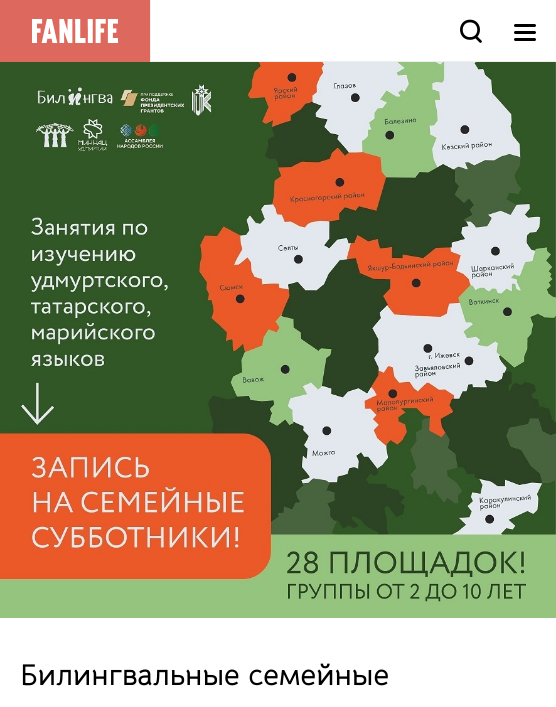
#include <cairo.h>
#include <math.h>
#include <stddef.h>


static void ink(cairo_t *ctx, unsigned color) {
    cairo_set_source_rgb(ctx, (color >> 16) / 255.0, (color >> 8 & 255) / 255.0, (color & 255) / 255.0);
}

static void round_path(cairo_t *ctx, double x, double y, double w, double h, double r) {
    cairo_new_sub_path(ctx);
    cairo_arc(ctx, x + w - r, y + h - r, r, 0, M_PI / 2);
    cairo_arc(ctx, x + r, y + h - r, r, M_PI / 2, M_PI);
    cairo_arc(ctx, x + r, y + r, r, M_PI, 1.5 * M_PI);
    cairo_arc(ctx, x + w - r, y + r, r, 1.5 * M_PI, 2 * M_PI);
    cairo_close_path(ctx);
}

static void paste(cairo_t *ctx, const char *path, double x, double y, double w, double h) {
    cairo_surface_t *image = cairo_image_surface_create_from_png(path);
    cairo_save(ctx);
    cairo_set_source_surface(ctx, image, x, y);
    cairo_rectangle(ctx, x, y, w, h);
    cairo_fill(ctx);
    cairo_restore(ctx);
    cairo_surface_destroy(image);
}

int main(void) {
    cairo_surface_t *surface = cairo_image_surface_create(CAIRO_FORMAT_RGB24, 556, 707);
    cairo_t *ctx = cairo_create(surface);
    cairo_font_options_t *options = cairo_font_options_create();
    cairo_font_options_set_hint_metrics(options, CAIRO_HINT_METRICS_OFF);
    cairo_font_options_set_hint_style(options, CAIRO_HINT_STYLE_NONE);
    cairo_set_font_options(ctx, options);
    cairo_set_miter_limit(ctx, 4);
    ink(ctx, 0xFFFFFF);
    cairo_paint(ctx);
    ink(ctx, 0xEEEEEE);
    cairo_rectangle(ctx, 150, 61, 406, 1);
    cairo_fill(ctx);
    cairo_rectangle(ctx, 150, 0, 1, 61);
    cairo_fill(ctx);
    paste(ctx, "media/1.png", 0, 0, 150, 62);
    cairo_new_path(ctx);
    cairo_move_to(ctx, 470, 38.5);
    cairo_curve_to(ctx, 481.5, 38.5, 481.5, 21, 470, 21);
    cairo_curve_to(ctx, 458.5, 21, 458.5, 38.5, 470, 38.5);
    cairo_close_path(ctx);
    cairo_move_to(ctx, 476, 37);
    cairo_line_to(ctx, 480.5, 41.5);
    ink(ctx, 0x000000);
    cairo_set_line_width(ctx, 2.7);
    cairo_set_line_cap(ctx, CAIRO_LINE_CAP_ROUND);
    cairo_set_line_join(ctx, CAIRO_LINE_JOIN_ROUND);
    cairo_stroke(ctx);
    round_path(ctx, 514, 24, 22, 3, 1.5);
    cairo_fill(ctx);
    round_path(ctx, 514, 31, 22, 3, 1.5);
    cairo_fill(ctx);
    round_path(ctx, 514, 38, 22, 3, 1.5);
    cairo_fill(ctx);
    paste(ctx, "media/2.png", 0, 62, 556, 556);
    cairo_select_font_face(ctx, "Bellota Text", CAIRO_FONT_SLANT_NORMAL, CAIRO_FONT_WEIGHT_BOLD);
    cairo_set_font_size(ctx, 30);
    cairo_move_to(ctx, 20, 685);
    cairo_show_text(ctx, "Билингвальные семейные");
    cairo_surface_write_to_png(surface, "image.png");
    cairo_font_options_destroy(options);
    cairo_destroy(ctx);
    cairo_surface_destroy(surface);
    return 0;
}
